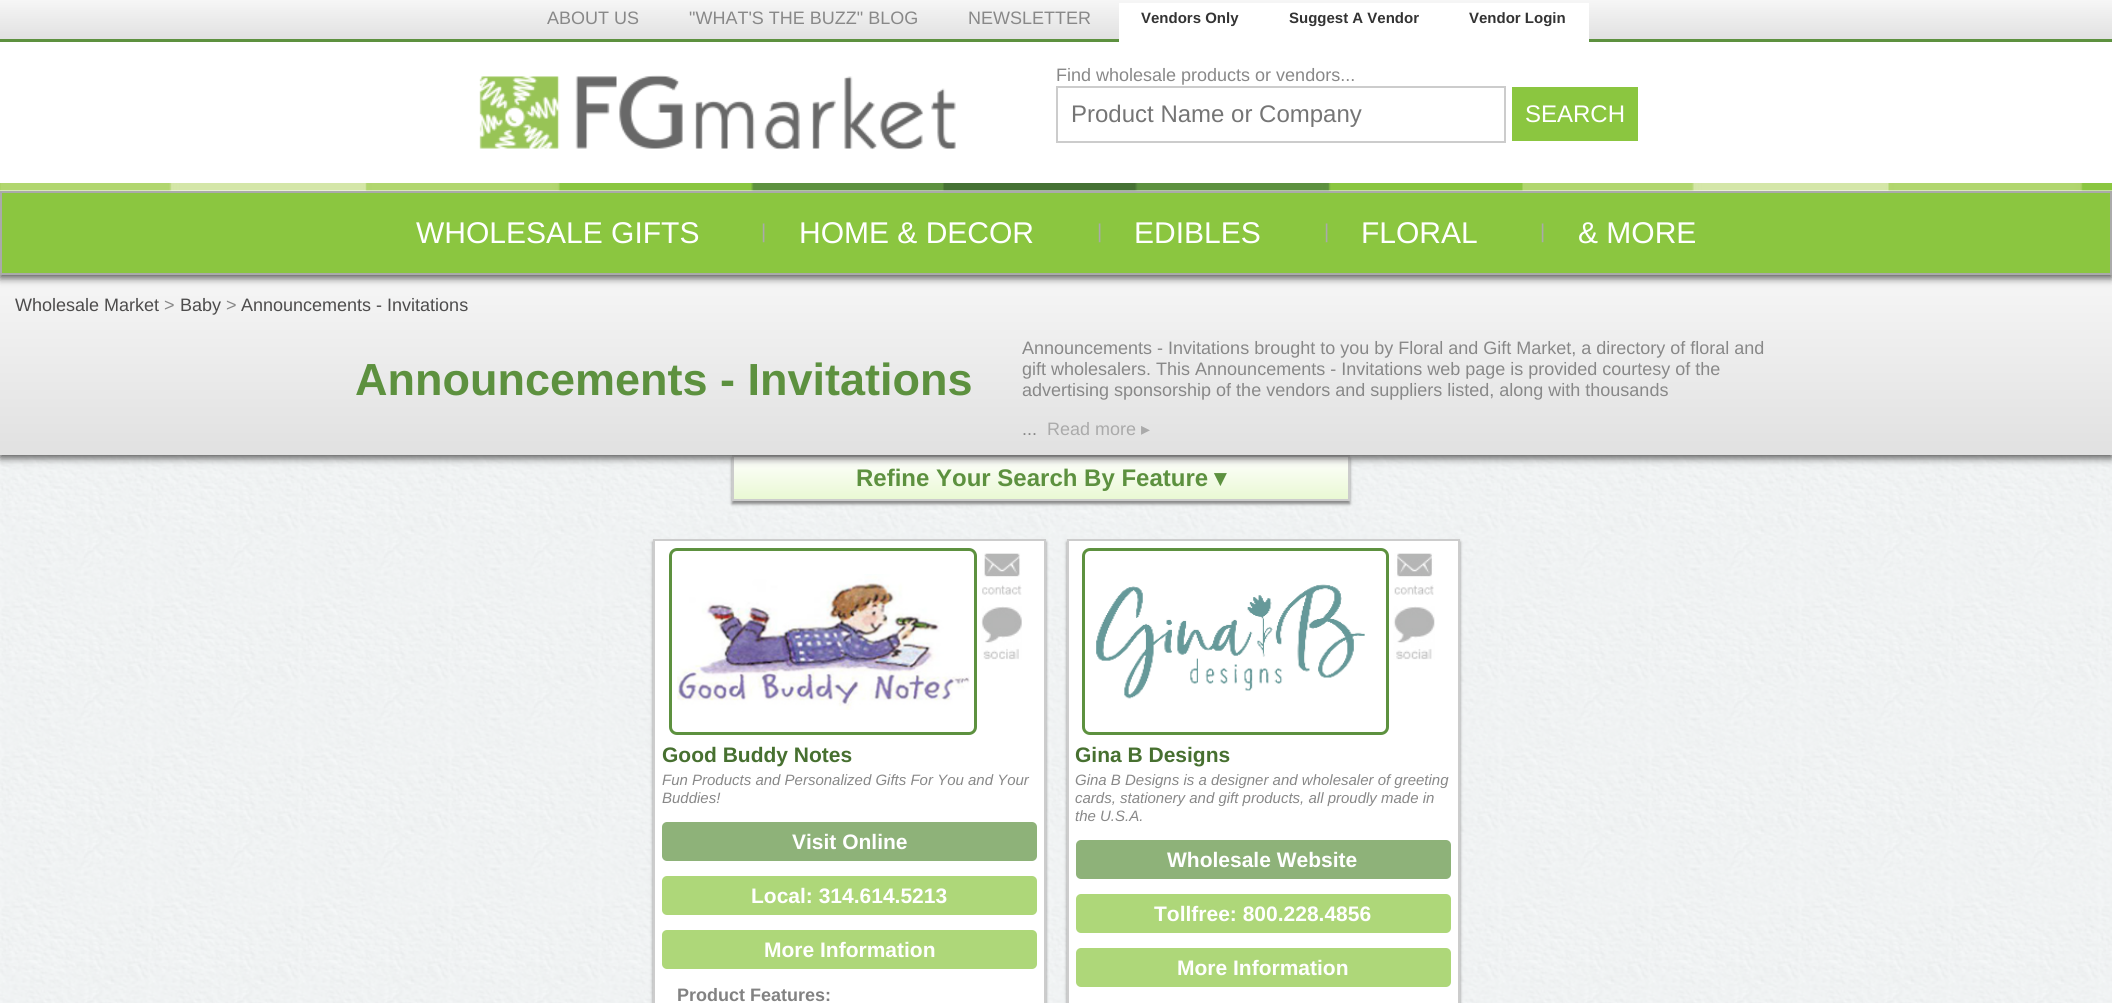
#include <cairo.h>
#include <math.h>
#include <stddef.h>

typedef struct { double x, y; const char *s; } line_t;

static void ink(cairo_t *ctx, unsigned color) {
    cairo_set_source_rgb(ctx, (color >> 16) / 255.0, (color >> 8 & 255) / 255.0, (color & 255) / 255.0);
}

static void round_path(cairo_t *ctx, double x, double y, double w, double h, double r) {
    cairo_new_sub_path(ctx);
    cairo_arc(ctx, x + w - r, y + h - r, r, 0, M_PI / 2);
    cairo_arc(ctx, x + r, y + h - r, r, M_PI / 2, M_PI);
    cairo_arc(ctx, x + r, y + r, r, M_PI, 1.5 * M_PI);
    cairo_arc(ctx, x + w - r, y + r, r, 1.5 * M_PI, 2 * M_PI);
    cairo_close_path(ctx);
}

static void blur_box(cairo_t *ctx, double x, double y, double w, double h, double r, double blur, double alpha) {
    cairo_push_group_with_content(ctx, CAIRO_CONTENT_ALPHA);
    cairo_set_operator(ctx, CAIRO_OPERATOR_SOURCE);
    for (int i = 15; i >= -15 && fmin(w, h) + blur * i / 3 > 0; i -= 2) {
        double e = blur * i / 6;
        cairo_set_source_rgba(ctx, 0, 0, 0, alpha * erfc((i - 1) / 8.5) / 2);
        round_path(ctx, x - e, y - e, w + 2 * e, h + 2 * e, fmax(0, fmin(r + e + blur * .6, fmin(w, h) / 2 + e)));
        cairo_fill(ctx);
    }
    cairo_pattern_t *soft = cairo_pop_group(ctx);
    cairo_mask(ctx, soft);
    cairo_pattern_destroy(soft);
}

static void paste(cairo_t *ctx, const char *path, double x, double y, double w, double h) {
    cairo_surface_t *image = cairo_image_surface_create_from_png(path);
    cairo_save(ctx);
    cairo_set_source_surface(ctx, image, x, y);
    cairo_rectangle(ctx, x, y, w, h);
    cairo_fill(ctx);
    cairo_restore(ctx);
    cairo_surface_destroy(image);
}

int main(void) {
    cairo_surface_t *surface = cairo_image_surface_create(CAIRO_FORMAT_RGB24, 2112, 1003);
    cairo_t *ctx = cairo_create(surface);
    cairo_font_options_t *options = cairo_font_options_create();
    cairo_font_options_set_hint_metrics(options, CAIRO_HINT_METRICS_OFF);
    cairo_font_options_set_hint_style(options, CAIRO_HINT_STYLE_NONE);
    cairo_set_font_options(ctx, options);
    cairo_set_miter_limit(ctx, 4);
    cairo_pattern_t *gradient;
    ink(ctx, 0xFFFFFF);
    cairo_paint(ctx);
    paste(ctx, "media/3.png", 0, 455, 2112, 548);
    ink(ctx, 0x888888);
    blur_box(ctx, 732, 458, 618, 46, 0, 1.5, 1);
    gradient = cairo_pattern_create_linear(1041, 456, 1041, 500);
    cairo_pattern_add_color_stop_rgba(gradient, 0, 1, 1, 1, 1);
    cairo_pattern_add_color_stop_rgba(gradient, 1, 0.914, 0.973, 0.827, 1);
    cairo_set_source(ctx, gradient);
    cairo_pattern_destroy(gradient);
    cairo_rectangle(ctx, 734, 457, 614, 42);
    cairo_fill(ctx);
    cairo_rectangle(ctx, 733, 456, 616, 44);
    ink(ctx, 0xCCCCCC);
    cairo_stroke(ctx);
    ink(ctx, 0x555555);
    blur_box(ctx, 0, 278, 2112, 180, 0, 4, 1);
    gradient = cairo_pattern_create_linear(1056, 274, 1056, 455);
    cairo_pattern_add_color_stop_rgba(gradient, 0, 0.965, 0.965, 0.965, 1);
    cairo_pattern_add_color_stop_rgba(gradient, 1, 0.882, 0.882, 0.882, 1);
    cairo_set_source(ctx, gradient);
    cairo_pattern_destroy(gradient);
    cairo_rectangle(ctx, 0, 275, 2112, 180);
    cairo_fill(ctx);
    ink(ctx, 0x555555);
    blur_box(ctx, 0, 3, 2112, 275, 0, 4, 1);
    ink(ctx, 0xFFFFFF);
    cairo_rectangle(ctx, 0, 42, 2112, 149);
    cairo_fill(ctx);
    gradient = cairo_pattern_create_linear(1056, 0, 1056, 39);
    cairo_pattern_add_color_stop_rgba(gradient, 0, 0.965, 0.965, 0.965, 1);
    cairo_pattern_add_color_stop_rgba(gradient, 1, 0.882, 0.882, 0.882, 1);
    cairo_set_source(ctx, gradient);
    cairo_pattern_destroy(gradient);
    cairo_rectangle(ctx, 0, 0, 2112, 39);
    cairo_fill(ctx);
    ink(ctx, 0x5D913F);
    cairo_rectangle(ctx, 0, 39, 2112, 3);
    cairo_fill(ctx);
    cairo_select_font_face(ctx, "Liberation Sans", CAIRO_FONT_SLANT_NORMAL, CAIRO_FONT_WEIGHT_NORMAL);
    cairo_set_font_size(ctx, 18);
    ink(ctx, 0x888888);
    {
        static const line_t items[] = {
            {547, 24, "ABOUT US"},
            {689, 24, "\"WHAT'S THE BUZZ\" BLOG"},
            {968, 24, "NEWSLETTER"},
        };
        for (size_t i = 0; i < sizeof items / sizeof *items; i++) {
            cairo_move_to(ctx, items[i].x, items[i].y);
            cairo_show_text(ctx, items[i].s);
        }
    }
    ink(ctx, 0xFFFFFF);
    cairo_rectangle(ctx, 1119, 3, 470, 39);
    cairo_fill(ctx);
    cairo_select_font_face(ctx, "Liberation Sans", CAIRO_FONT_SLANT_NORMAL, CAIRO_FONT_WEIGHT_BOLD);
    cairo_set_font_size(ctx, 15);
    ink(ctx, 0x333333);
    {
        static const line_t items[] = {
            {1141, 23, "Vendors Only"},
            {1289, 23, "Suggest A Vendor"},
            {1469, 23, "Vendor Login"},
        };
        for (size_t i = 0; i < sizeof items / sizeof *items; i++) {
            cairo_move_to(ctx, items[i].x, items[i].y);
            cairo_show_text(ctx, items[i].s);
        }
    }
    paste(ctx, "media/1.png", 479, 75, 477, 75);
    cairo_select_font_face(ctx, "Liberation Sans", CAIRO_FONT_SLANT_NORMAL, CAIRO_FONT_WEIGHT_NORMAL);
    cairo_set_font_size(ctx, 18);
    ink(ctx, 0x888888);
    cairo_move_to(ctx, 1056, 81);
    cairo_show_text(ctx, "Find wholesale products or vendors...");
    cairo_rectangle(ctx, 1057, 87, 448, 55);
    ink(ctx, 0xCCCCCC);
    cairo_stroke(ctx);
    cairo_set_font_size(ctx, 24);
    ink(ctx, 0x757575);
    cairo_move_to(ctx, 1071, 122);
    cairo_show_text(ctx, "Product Name or Company");
    ink(ctx, 0x8BC640);
    cairo_rectangle(ctx, 1512, 87, 126, 54);
    cairo_fill(ctx);
    ink(ctx, 0xFFFFFF);
    cairo_move_to(ctx, 1525, 122);
    cairo_show_text(ctx, "SEARCH");
    paste(ctx, "media/2.png", 0, 183, 2112, 8);
    ink(ctx, 0x8BC640);
    cairo_rectangle(ctx, 1, 192, 2110, 82);
    cairo_fill_preserve(ctx);
    ink(ctx, 0xAAAAAA);
    cairo_stroke(ctx);
    cairo_set_font_size(ctx, 30);
    ink(ctx, 0xFFFFFF);
    cairo_move_to(ctx, 416, 243);
    cairo_show_text(ctx, "WHOLESALE GIFTS");
    cairo_set_font_size(ctx, 20);
    ink(ctx, 0xAAAAAA);
    cairo_move_to(ctx, 761, 238);
    cairo_show_text(ctx, "|");
    cairo_set_font_size(ctx, 30);
    ink(ctx, 0xFFFFFF);
    cairo_move_to(ctx, 799, 243);
    cairo_show_text(ctx, "HOME & DECOR");
    cairo_set_font_size(ctx, 20);
    ink(ctx, 0xAAAAAA);
    cairo_move_to(ctx, 1097, 238);
    cairo_show_text(ctx, "|");
    cairo_set_font_size(ctx, 30);
    ink(ctx, 0xFFFFFF);
    cairo_move_to(ctx, 1134, 243);
    cairo_show_text(ctx, "EDIBLES");
    cairo_set_font_size(ctx, 20);
    ink(ctx, 0xAAAAAA);
    cairo_move_to(ctx, 1324, 238);
    cairo_show_text(ctx, "|");
    cairo_set_font_size(ctx, 30);
    ink(ctx, 0xFFFFFF);
    cairo_move_to(ctx, 1361, 243);
    cairo_show_text(ctx, "FLORAL");
    cairo_set_font_size(ctx, 20);
    ink(ctx, 0xAAAAAA);
    cairo_move_to(ctx, 1540, 238);
    cairo_show_text(ctx, "|");
    cairo_set_font_size(ctx, 30);
    ink(ctx, 0xFFFFFF);
    cairo_move_to(ctx, 1578, 243);
    cairo_show_text(ctx, "& MORE");
    cairo_set_font_size(ctx, 18);
    ink(ctx, 0x4D4C4C);
    cairo_move_to(ctx, 15, 311);
    cairo_show_text(ctx, "Wholesale Market");
    ink(ctx, 0x888888);
    cairo_move_to(ctx, 164, 311);
    cairo_show_text(ctx, ">");
    ink(ctx, 0x4D4C4C);
    cairo_move_to(ctx, 180, 311);
    cairo_show_text(ctx, "Baby");
    ink(ctx, 0x888888);
    cairo_move_to(ctx, 226, 311);
    cairo_show_text(ctx, ">");
    ink(ctx, 0x4D4C4C);
    cairo_move_to(ctx, 241, 311);
    cairo_show_text(ctx, "Announcements - Invitations");
    cairo_select_font_face(ctx, "Liberation Sans", CAIRO_FONT_SLANT_NORMAL, CAIRO_FONT_WEIGHT_BOLD);
    cairo_set_font_size(ctx, 45);
    ink(ctx, 0x5D913F);
    cairo_move_to(ctx, 355, 395);
    cairo_show_text(ctx, "Announcements - Invitations");
    cairo_select_font_face(ctx, "Liberation Sans", CAIRO_FONT_SLANT_NORMAL, CAIRO_FONT_WEIGHT_NORMAL);
    cairo_set_font_size(ctx, 18);
    ink(ctx, 0x888888);
    {
        static const line_t items[] = {
            {1022, 354, "Announcements - Invitations brought to you by Floral and Gift Market, a directory of floral and"},
            {1022, 375, "gift wholesalers. This Announcements - Invitations web page is provided courtesy of the"},
            {1022, 396, "advertising sponsorship of the vendors and suppliers listed, along with thousands"},
            {1022, 435, "..."},
        };
        for (size_t i = 0; i < sizeof items / sizeof *items; i++) {
            cairo_move_to(ctx, items[i].x, items[i].y);
            cairo_show_text(ctx, items[i].s);
        }
    }
    ink(ctx, 0xAAAAAA);
    cairo_move_to(ctx, 1047, 435);
    cairo_show_text(ctx, "Read more");
    cairo_select_font_face(ctx, "DejaVu Sans", CAIRO_FONT_SLANT_NORMAL, CAIRO_FONT_WEIGHT_NORMAL);
    cairo_move_to(ctx, 1141, 435);
    cairo_show_text(ctx, "▸");
    cairo_select_font_face(ctx, "Liberation Sans", CAIRO_FONT_SLANT_NORMAL, CAIRO_FONT_WEIGHT_BOLD);
    cairo_set_font_size(ctx, 24);
    ink(ctx, 0x5D913F);
    cairo_move_to(ctx, 856, 486);
    cairo_show_text(ctx, "Refine Your Search By Feature");
    cairo_select_font_face(ctx, "DejaVu Sans", CAIRO_FONT_SLANT_NORMAL, CAIRO_FONT_WEIGHT_BOLD);
    cairo_move_to(ctx, 1214, 486);
    cairo_show_text(ctx, "▾");
    ink(ctx, 0x888888);
    blur_box(ctx, 653, 542, 393, 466, 0, 1.5, 1);
    ink(ctx, 0xFFFFFF);
    cairo_rectangle(ctx, 654, 540, 391, 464);
    cairo_fill_preserve(ctx);
    ink(ctx, 0xCCCCCC);
    cairo_stroke(ctx);
    round_path(ctx, 670.5, 549.5, 305, 184, 6.5);
    ink(ctx, 0x5D913F);
    cairo_set_line_width(ctx, 3);
    cairo_stroke(ctx);
    paste(ctx, "media/4.png", 677, 574, 293, 136);
    paste(ctx, "media/5.png", 982, 553, 40, 42);
    paste(ctx, "media/6.png", 981, 606, 41, 54);
    cairo_select_font_face(ctx, "Liberation Sans", CAIRO_FONT_SLANT_NORMAL, CAIRO_FONT_WEIGHT_BOLD);
    cairo_set_font_size(ctx, 21);
    ink(ctx, 0x477030);
    cairo_move_to(ctx, 662, 762);
    cairo_show_text(ctx, "Good Buddy Notes");
    cairo_select_font_face(ctx, "Liberation Sans", CAIRO_FONT_SLANT_ITALIC, CAIRO_FONT_WEIGHT_NORMAL);
    cairo_set_font_size(ctx, 15);
    ink(ctx, 0x888888);
    cairo_move_to(ctx, 662, 785);
    cairo_show_text(ctx, "Fun Products and Personalized Gifts For You and Your");
    cairo_move_to(ctx, 662, 803);
    cairo_show_text(ctx, "Buddies!");
    ink(ctx, 0x8EB279);
    round_path(ctx, 662, 822, 375, 39, 5);
    cairo_fill(ctx);
    cairo_select_font_face(ctx, "Liberation Sans", CAIRO_FONT_SLANT_NORMAL, CAIRO_FONT_WEIGHT_BOLD);
    cairo_set_font_size(ctx, 21);
    ink(ctx, 0xFFFFFF);
    cairo_move_to(ctx, 792, 849);
    cairo_show_text(ctx, "Visit Online");
    ink(ctx, 0xAED779);
    round_path(ctx, 662, 876, 375, 39, 5);
    cairo_fill(ctx);
    ink(ctx, 0xFFFFFF);
    cairo_move_to(ctx, 751, 903);
    cairo_show_text(ctx, "Local: 314.614.5213");
    ink(ctx, 0xAED779);
    round_path(ctx, 662, 930, 375, 39, 5);
    cairo_fill(ctx);
    ink(ctx, 0xFFFFFF);
    cairo_move_to(ctx, 764, 957);
    cairo_show_text(ctx, "More Information");
    cairo_set_font_size(ctx, 18);
    ink(ctx, 0x828282);
    cairo_move_to(ctx, 677, 1001);
    cairo_show_text(ctx, "Product Features:");
    ink(ctx, 0x888888);
    blur_box(ctx, 1067, 542, 393, 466, 0, 1.5, 1);
    ink(ctx, 0xFFFFFF);
    cairo_rectangle(ctx, 1068, 540, 391, 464);
    cairo_fill_preserve(ctx);
    ink(ctx, 0xCCCCCC);
    cairo_set_line_width(ctx, 2);
    cairo_stroke(ctx);
    round_path(ctx, 1083.5, 549.5, 304, 184, 6.5);
    ink(ctx, 0x5D913F);
    cairo_set_line_width(ctx, 3);
    cairo_stroke(ctx);
    paste(ctx, "media/7.png", 1096, 584, 269, 115);
    paste(ctx, "media/8.png", 1394, 553, 40, 42);
    paste(ctx, "media/9.png", 1393, 606, 42, 54);
    cairo_set_font_size(ctx, 21);
    ink(ctx, 0x477030);
    cairo_move_to(ctx, 1075, 762);
    cairo_show_text(ctx, "Gina B Designs");
    cairo_select_font_face(ctx, "Liberation Sans", CAIRO_FONT_SLANT_ITALIC, CAIRO_FONT_WEIGHT_NORMAL);
    cairo_set_font_size(ctx, 15);
    ink(ctx, 0x888888);
    {
        static const line_t items[] = {
            {1075, 785, "Gina B Designs is a designer and wholesaler of greeting"},
            {1075, 803, "cards, stationery and gift products, all proudly made in"},
            {1075, 821, "the U.S.A."},
        };
        for (size_t i = 0; i < sizeof items / sizeof *items; i++) {
            cairo_move_to(ctx, items[i].x, items[i].y);
            cairo_show_text(ctx, items[i].s);
        }
    }
    ink(ctx, 0x8EB279);
    round_path(ctx, 1076, 840, 375, 39, 5);
    cairo_fill(ctx);
    cairo_select_font_face(ctx, "Liberation Sans", CAIRO_FONT_SLANT_NORMAL, CAIRO_FONT_WEIGHT_BOLD);
    cairo_set_font_size(ctx, 21);
    ink(ctx, 0xFFFFFF);
    cairo_move_to(ctx, 1167, 867);
    cairo_show_text(ctx, "Wholesale Website");
    ink(ctx, 0xAED779);
    round_path(ctx, 1076, 894, 375, 39, 5);
    cairo_fill(ctx);
    ink(ctx, 0xFFFFFF);
    cairo_move_to(ctx, 1154, 921);
    cairo_show_text(ctx, "Tollfree: 800.228.4856");
    ink(ctx, 0xAED779);
    round_path(ctx, 1076, 948, 375, 39, 5);
    cairo_fill(ctx);
    ink(ctx, 0xFFFFFF);
    cairo_move_to(ctx, 1177, 975);
    cairo_show_text(ctx, "More Information");
    cairo_surface_write_to_png(surface, "image.png");
    cairo_font_options_destroy(options);
    cairo_destroy(ctx);
    cairo_surface_destroy(surface);
    return 0;
}
